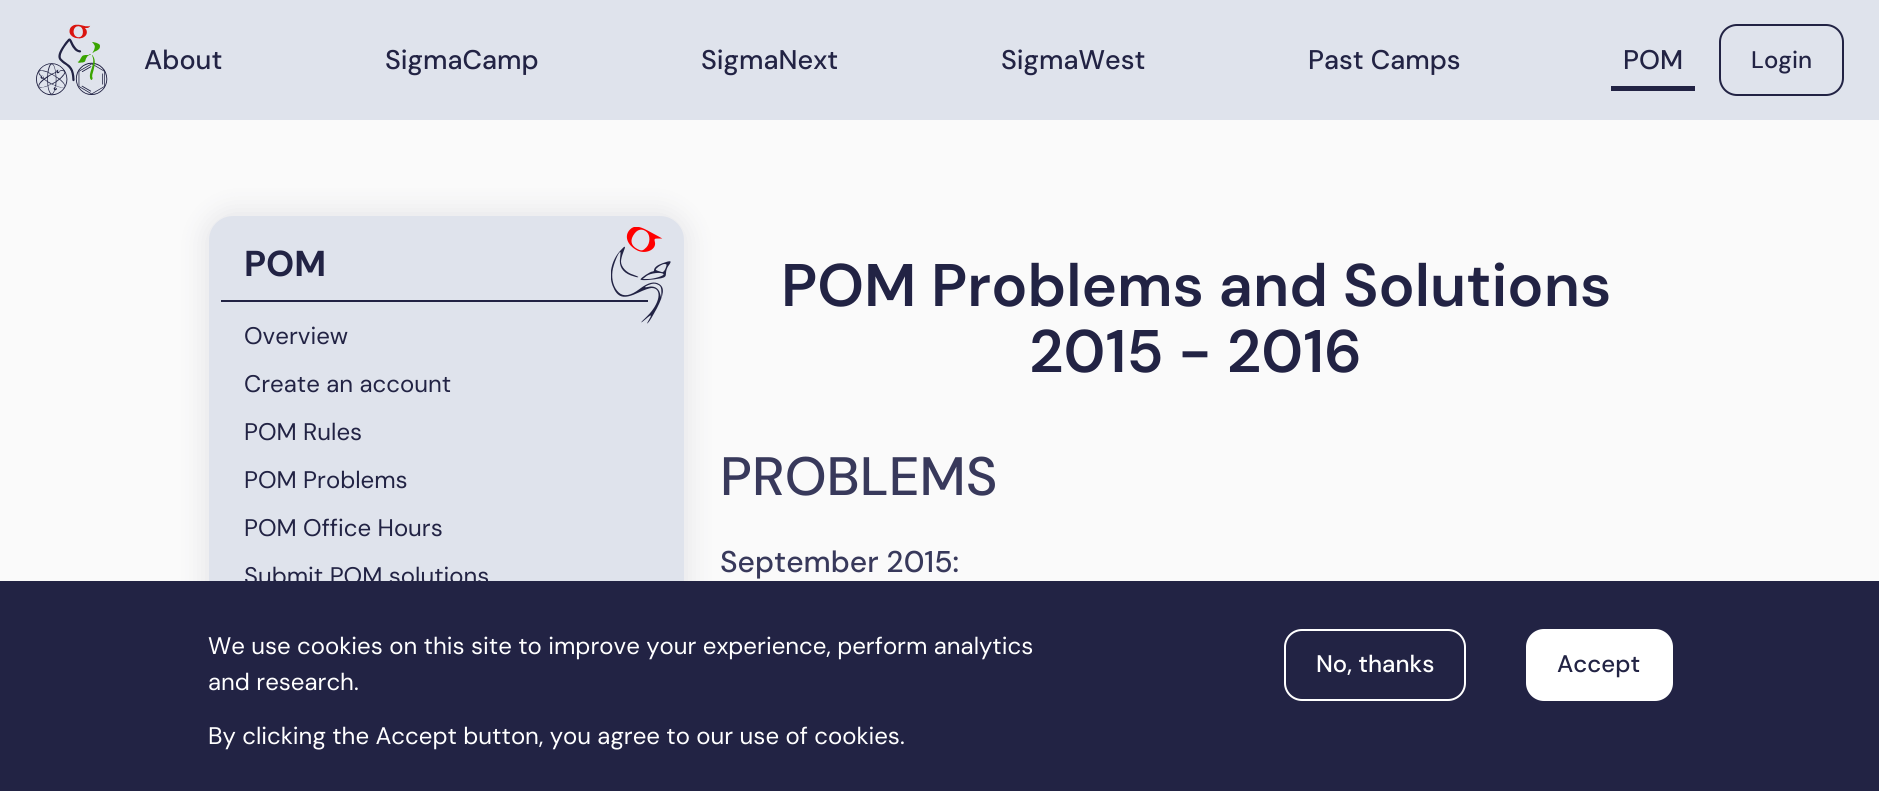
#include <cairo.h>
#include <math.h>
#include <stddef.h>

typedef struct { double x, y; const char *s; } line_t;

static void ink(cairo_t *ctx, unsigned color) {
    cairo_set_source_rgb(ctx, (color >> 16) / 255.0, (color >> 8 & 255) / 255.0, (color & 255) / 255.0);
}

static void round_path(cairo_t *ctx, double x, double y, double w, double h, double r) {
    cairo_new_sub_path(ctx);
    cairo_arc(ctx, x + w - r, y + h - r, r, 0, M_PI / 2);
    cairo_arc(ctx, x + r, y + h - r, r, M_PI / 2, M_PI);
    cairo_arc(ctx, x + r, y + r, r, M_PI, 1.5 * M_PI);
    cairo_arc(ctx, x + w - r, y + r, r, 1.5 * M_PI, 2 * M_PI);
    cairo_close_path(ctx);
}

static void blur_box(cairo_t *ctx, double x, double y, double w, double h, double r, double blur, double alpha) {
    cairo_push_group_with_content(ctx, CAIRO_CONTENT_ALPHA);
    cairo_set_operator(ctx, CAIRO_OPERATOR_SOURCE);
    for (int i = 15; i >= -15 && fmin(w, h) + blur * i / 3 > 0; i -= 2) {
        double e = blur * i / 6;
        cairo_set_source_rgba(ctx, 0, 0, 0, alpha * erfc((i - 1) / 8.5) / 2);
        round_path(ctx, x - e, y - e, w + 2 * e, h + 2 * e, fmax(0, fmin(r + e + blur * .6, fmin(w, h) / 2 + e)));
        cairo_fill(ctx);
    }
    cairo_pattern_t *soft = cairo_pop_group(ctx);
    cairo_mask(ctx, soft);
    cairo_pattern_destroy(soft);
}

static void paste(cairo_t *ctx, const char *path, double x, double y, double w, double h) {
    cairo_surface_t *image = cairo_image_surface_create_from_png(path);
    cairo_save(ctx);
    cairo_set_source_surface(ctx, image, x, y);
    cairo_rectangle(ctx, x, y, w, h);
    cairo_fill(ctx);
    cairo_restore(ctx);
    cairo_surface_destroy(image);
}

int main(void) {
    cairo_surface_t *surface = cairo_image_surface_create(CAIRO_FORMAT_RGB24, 1879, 791);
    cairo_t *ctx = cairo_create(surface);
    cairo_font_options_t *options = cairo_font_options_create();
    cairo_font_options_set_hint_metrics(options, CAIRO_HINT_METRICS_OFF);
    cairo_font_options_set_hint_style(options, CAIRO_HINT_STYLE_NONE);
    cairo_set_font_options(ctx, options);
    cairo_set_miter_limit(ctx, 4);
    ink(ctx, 0xFAFAFA);
    cairo_paint(ctx);
    ink(ctx, 0xDFE3EC);
    cairo_rectangle(ctx, 0, 0, 1879, 120);
    cairo_fill(ctx);
    paste(ctx, "media/1.png", 36, 24, 72, 72);
    cairo_select_font_face(ctx, "DM Sans Medium", CAIRO_FONT_SLANT_NORMAL, CAIRO_FONT_WEIGHT_NORMAL);
    cairo_set_font_size(ctx, 27);
    ink(ctx, 0x222344);
    {
        static const line_t items[] = {
            {144, 69, "About"},
            {385, 69, "SigmaCamp"},
            {701, 69, "SigmaNext"},
            {1001, 69, "SigmaWest"},
            {1308, 69, "Past Camps"},
        };
        for (size_t i = 0; i < sizeof items / sizeof *items; i++) {
            cairo_move_to(ctx, items[i].x, items[i].y);
            cairo_show_text(ctx, items[i].s);
        }
    }
    cairo_rectangle(ctx, 1611, 86, 84, 5);
    cairo_fill(ctx);
    cairo_move_to(ctx, 1623, 69);
    cairo_show_text(ctx, "POM");
    round_path(ctx, 1720, 25, 123, 70, 17);
    cairo_stroke(ctx);
    cairo_set_font_size(ctx, 24);
    cairo_move_to(ctx, 1751, 68);
    cairo_show_text(ctx, "Login");
    ink(ctx, 0x38395B);
    blur_box(ctx, 203, 210, 487, 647, 30, 12, 0.1);
    ink(ctx, 0xDFE3EC);
    round_path(ctx, 209, 216, 475, 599, 24);
    cairo_fill(ctx);
    cairo_select_font_face(ctx, "DM Sans", CAIRO_FONT_SLANT_NORMAL, CAIRO_FONT_WEIGHT_BOLD);
    cairo_set_font_size(ctx, 36);
    ink(ctx, 0x222344);
    cairo_move_to(ctx, 244, 276);
    cairo_show_text(ctx, "POM");
    paste(ctx, "media/2.png", 611, 227, 60, 97);
    cairo_rectangle(ctx, 221, 300, 427, 2);
    cairo_fill(ctx);
    cairo_select_font_face(ctx, "DM Sans", CAIRO_FONT_SLANT_NORMAL, CAIRO_FONT_WEIGHT_NORMAL);
    cairo_set_font_size(ctx, 24);
    {
        static const line_t items[] = {
            {244, 344, "Overview"},
            {244, 392, "Create an account"},
            {244, 440, "POM Rules"},
            {244, 488, "POM Problems"},
            {244, 536, "POM Office Hours"},
            {244, 584, "Submit POM solutions"},
        };
        for (size_t i = 0; i < sizeof items / sizeof *items; i++) {
            cairo_move_to(ctx, items[i].x, items[i].y);
            cairo_show_text(ctx, items[i].s);
        }
    }
    cairo_select_font_face(ctx, "DM Sans SemiBold", CAIRO_FONT_SLANT_NORMAL, CAIRO_FONT_WEIGHT_NORMAL);
    cairo_set_font_size(ctx, 60);
    cairo_move_to(ctx, 781, 306);
    cairo_show_text(ctx, "POM Problems and Solutions");
    cairo_move_to(ctx, 1029, 372);
    cairo_show_text(ctx, "2015 - 2016");
    cairo_select_font_face(ctx, "DM Sans Medium", CAIRO_FONT_SLANT_NORMAL, CAIRO_FONT_WEIGHT_NORMAL);
    cairo_set_font_size(ctx, 54);
    ink(ctx, 0x38395B);
    cairo_move_to(ctx, 720, 495);
    cairo_show_text(ctx, "PROBLEMS");
    cairo_set_font_size(ctx, 30);
    cairo_move_to(ctx, 720, 572);
    cairo_show_text(ctx, "September 2015:");
    ink(ctx, 0x222344);
    cairo_rectangle(ctx, 0, 581, 1879, 210);
    cairo_fill(ctx);
    cairo_select_font_face(ctx, "DM Sans", CAIRO_FONT_SLANT_NORMAL, CAIRO_FONT_WEIGHT_NORMAL);
    cairo_set_font_size(ctx, 24);
    ink(ctx, 0xFFFFFF);
    {
        static const line_t items[] = {
            {208, 654, "We use cookies on this site to improve your experience, perform analytics"},
            {208, 690, "and research."},
            {208, 744, "By clicking the Accept button, you agree to our use of cookies."},
        };
        for (size_t i = 0; i < sizeof items / sizeof *items; i++) {
            cairo_move_to(ctx, items[i].x, items[i].y);
            cairo_show_text(ctx, items[i].s);
        }
    }
    round_path(ctx, 1285, 630, 180, 70, 17);
    cairo_stroke(ctx);
    cairo_select_font_face(ctx, "DM Sans Medium", CAIRO_FONT_SLANT_NORMAL, CAIRO_FONT_WEIGHT_NORMAL);
    cairo_move_to(ctx, 1316, 672);
    cairo_show_text(ctx, "No, thanks");
    round_path(ctx, 1527, 630, 145, 70, 17);
    cairo_fill_preserve(ctx);
    cairo_stroke(ctx);
    ink(ctx, 0x222344);
    cairo_move_to(ctx, 1557, 672);
    cairo_show_text(ctx, "Accept");
    cairo_surface_write_to_png(surface, "image.png");
    cairo_font_options_destroy(options);
    cairo_destroy(ctx);
    cairo_surface_destroy(surface);
    return 0;
}
